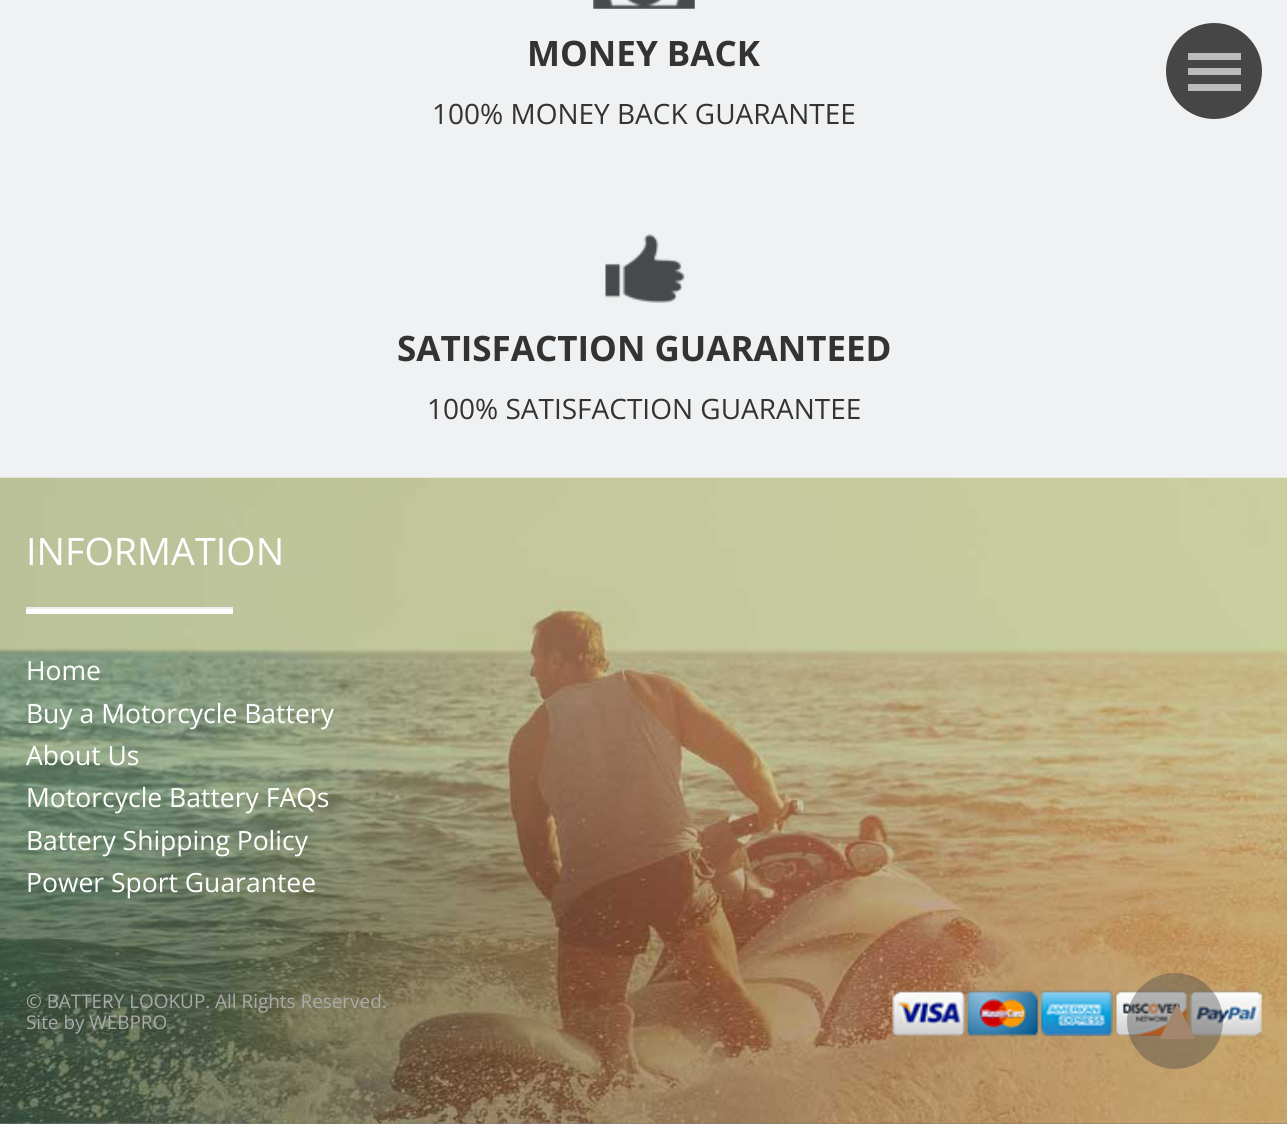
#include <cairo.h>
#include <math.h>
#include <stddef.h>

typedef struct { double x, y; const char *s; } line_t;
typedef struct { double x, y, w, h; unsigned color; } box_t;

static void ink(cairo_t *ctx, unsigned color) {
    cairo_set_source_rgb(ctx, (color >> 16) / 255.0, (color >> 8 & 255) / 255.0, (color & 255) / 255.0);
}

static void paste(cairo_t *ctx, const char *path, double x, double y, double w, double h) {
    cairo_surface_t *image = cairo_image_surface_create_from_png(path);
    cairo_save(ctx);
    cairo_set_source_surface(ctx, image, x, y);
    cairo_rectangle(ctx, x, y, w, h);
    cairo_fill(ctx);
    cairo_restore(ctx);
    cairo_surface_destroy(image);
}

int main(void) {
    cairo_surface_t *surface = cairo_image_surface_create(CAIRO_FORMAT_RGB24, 1287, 1124);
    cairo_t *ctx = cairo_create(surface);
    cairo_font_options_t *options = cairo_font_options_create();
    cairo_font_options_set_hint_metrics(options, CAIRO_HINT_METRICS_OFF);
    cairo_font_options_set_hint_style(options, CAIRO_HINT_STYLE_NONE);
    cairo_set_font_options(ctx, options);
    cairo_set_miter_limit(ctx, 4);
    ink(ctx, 0xEFF1F2);
    cairo_paint(ctx);
    paste(ctx, "media/1.png", 593, 0, 102, 9);
    cairo_select_font_face(ctx, "Open Sans", CAIRO_FONT_SLANT_NORMAL, CAIRO_FONT_WEIGHT_BOLD);
    cairo_set_font_size(ctx, 35);
    ink(ctx, 0x333333);
    cairo_move_to(ctx, 527, 66);
    cairo_show_text(ctx, "MONEY BACK");
    cairo_select_font_face(ctx, "Open Sans", CAIRO_FONT_SLANT_NORMAL, CAIRO_FONT_WEIGHT_NORMAL);
    cairo_set_font_size(ctx, 28);
    cairo_move_to(ctx, 432, 124);
    cairo_show_text(ctx, "100% MONEY BACK GUARANTEE");
    paste(ctx, "media/2.png", 605, 234, 80, 69);
    cairo_select_font_face(ctx, "Open Sans", CAIRO_FONT_SLANT_NORMAL, CAIRO_FONT_WEIGHT_BOLD);
    cairo_set_font_size(ctx, 35);
    cairo_move_to(ctx, 397, 361);
    cairo_show_text(ctx, "SATISFACTION GUARANTEED");
    cairo_select_font_face(ctx, "Open Sans", CAIRO_FONT_SLANT_NORMAL, CAIRO_FONT_WEIGHT_NORMAL);
    cairo_set_font_size(ctx, 28);
    cairo_move_to(ctx, 427, 419);
    cairo_show_text(ctx, "100% SATISFACTION GUARANTEE");
    ink(ctx, 0x7A7A7A);
    cairo_rectangle(ctx, 0, 1123, 1287, 1);
    cairo_fill(ctx);
    paste(ctx, "media/3.png", 0, 477, 1287, 647);
    cairo_set_font_size(ctx, 37.75);
    ink(ctx, 0xFFFFFF);
    cairo_move_to(ctx, 26, 565);
    cairo_show_text(ctx, "INFORMATION");
    cairo_rectangle(ctx, 26, 609, 207, 5);
    cairo_fill(ctx);
    ink(ctx, 0xEEEEEE);
    cairo_rectangle(ctx, 26, 607, 207, 2);
    cairo_fill(ctx);
    cairo_set_font_size(ctx, 26.5);
    ink(ctx, 0xFFFFFF);
    {
        static const line_t items[] = {
            {26, 680, "Home"},
            {26, 723, "Buy a Motorcycle Battery"},
            {26, 765, "About Us"},
            {26, 807, "Motorcycle Battery FAQs"},
            {26, 850, "Battery Shipping Policy"},
            {26, 892, "Power Sport Guarantee"},
        };
        for (size_t i = 0; i < sizeof items / sizeof *items; i++) {
            cairo_move_to(ctx, items[i].x, items[i].y);
            cairo_show_text(ctx, items[i].s);
        }
    }
    cairo_set_font_size(ctx, 18.9);
    ink(ctx, 0xA9A9A9);
    cairo_move_to(ctx, 26, 1008);
    cairo_show_text(ctx, "© BATTERY LOOKUP. All Rights Reserved.");
    cairo_move_to(ctx, 26, 1029);
    cairo_show_text(ctx, "Site by WEBPRO");
    paste(ctx, "media/4.png", 892, 990, 370, 46);
    ink(ctx, 0x464646);
    cairo_arc(ctx, 1214, 71, 48, 0, 2 * M_PI);
    cairo_fill(ctx);
    {
        static const box_t items[] = {
            {1188, 84, 53, 7, 0xBBBBBB},
            {1188, 68, 53, 7, 0xBBBBBB},
            {1188, 53, 53, 7, 0xBBBBBB},
        };
        for (size_t i = 0; i < sizeof items / sizeof *items; i++) {
            ink(ctx, items[i].color);
            cairo_rectangle(ctx, items[i].x, items[i].y, items[i].w, items[i].h);
            cairo_fill(ctx);
        }
    }
    cairo_set_source_rgba(ctx, 0.275, 0.275, 0.275, 0.4);
    cairo_arc(ctx, 1175, 1021, 48, 0, 2 * M_PI);
    cairo_fill(ctx);
    cairo_select_font_face(ctx, "Liberation Sans", CAIRO_FONT_SLANT_NORMAL, CAIRO_FONT_WEIGHT_BOLD);
    cairo_set_font_size(ctx, 61);
    ink(ctx, 0xA3866D);
    cairo_move_to(ctx, 1147, 1039);
    cairo_show_text(ctx, "▲");
    cairo_surface_write_to_png(surface, "image.png");
    cairo_font_options_destroy(options);
    cairo_destroy(ctx);
    cairo_surface_destroy(surface);
    return 0;
}
